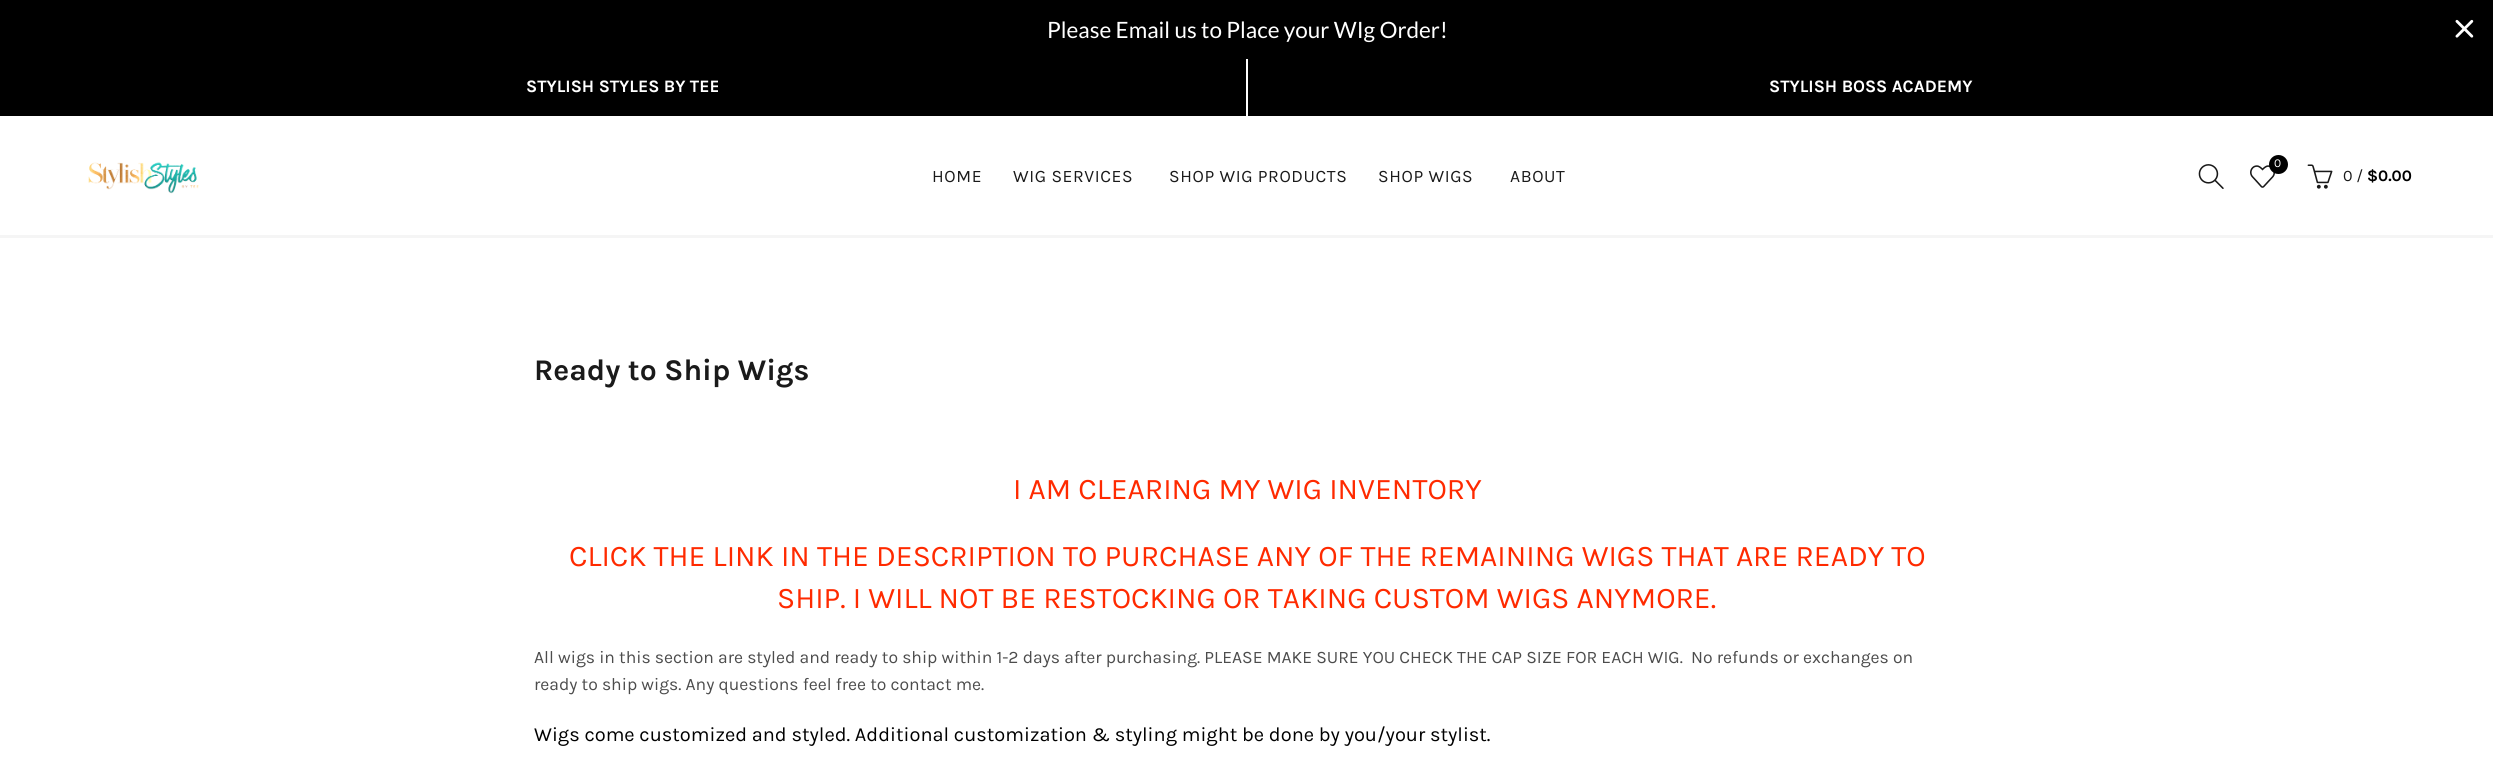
#include <cairo.h>
#include <math.h>
#include <stddef.h>

typedef struct { double x, y; const char *s; } line_t;

static void ink(cairo_t *ctx, unsigned color) {
    cairo_set_source_rgb(ctx, (color >> 16) / 255.0, (color >> 8 & 255) / 255.0, (color & 255) / 255.0);
}

static void write_spaced(cairo_t *ctx, double x, double y, const char *s, double letter, double word) {
    cairo_move_to(ctx, x, y);
    while (*s) {
        char ch[5] = {0};
        int n = 0;
        do ch[n++] = *s++; while ((*s & 0xC0) == 0x80);
        cairo_show_text(ctx, ch);
        cairo_rel_move_to(ctx, letter + word * (*ch == ' '), 0);
    }
}

static void paste(cairo_t *ctx, const char *path, double x, double y, double w, double h) {
    cairo_surface_t *image = cairo_image_surface_create_from_png(path);
    cairo_save(ctx);
    cairo_set_source_surface(ctx, image, x, y);
    cairo_rectangle(ctx, x, y, w, h);
    cairo_fill(ctx);
    cairo_restore(ctx);
    cairo_surface_destroy(image);
}

int main(void) {
    cairo_surface_t *surface = cairo_image_surface_create(CAIRO_FORMAT_RGB24, 2493, 757);
    cairo_t *ctx = cairo_create(surface);
    cairo_font_options_t *options = cairo_font_options_create();
    cairo_font_options_set_hint_metrics(options, CAIRO_HINT_METRICS_OFF);
    cairo_font_options_set_hint_style(options, CAIRO_HINT_STYLE_NONE);
    cairo_set_font_options(ctx, options);
    cairo_set_miter_limit(ctx, 4);
    ink(ctx, 0xFFFFFF);
    cairo_paint(ctx);
    ink(ctx, 0x000000);
    cairo_rectangle(ctx, 0, 0, 2493, 59);
    cairo_fill(ctx);
    cairo_select_font_face(ctx, "Lato", CAIRO_FONT_SLANT_NORMAL, CAIRO_FONT_WEIGHT_NORMAL);
    cairo_set_font_size(ctx, 22.5);
    ink(ctx, 0xFFFFFF);
    cairo_move_to(ctx, 1047, 38);
    cairo_show_text(ctx, "Please Email us to Place your WIg Order!");
    paste(ctx, "media/1.png", 2455, 19, 19, 19);
    ink(ctx, 0xF5F5F5);
    cairo_rectangle(ctx, 0, 235, 2493, 3);
    cairo_fill(ctx);
    ink(ctx, 0x000000);
    cairo_rectangle(ctx, 0, 59, 1246, 57);
    cairo_fill(ctx);
    cairo_select_font_face(ctx, "Karla", CAIRO_FONT_SLANT_NORMAL, CAIRO_FONT_WEIGHT_BOLD);
    cairo_set_font_size(ctx, 17.5);
    ink(ctx, 0xFFFFFF);
    cairo_move_to(ctx, 526, 92);
    cairo_show_text(ctx, "STYLISH STYLES BY TEE");
    ink(ctx, 0x000000);
    cairo_rectangle(ctx, 1248, 59, 1245, 57);
    cairo_fill(ctx);
    ink(ctx, 0xFFFFFF);
    cairo_move_to(ctx, 1769, 92);
    cairo_show_text(ctx, "STYLISH BOSS ACADEMY");
    paste(ctx, "media/2.png", 88, 162, 111, 32);
    cairo_select_font_face(ctx, "Karla", CAIRO_FONT_SLANT_NORMAL, CAIRO_FONT_WEIGHT_NORMAL);
    ink(ctx, 0x1A1A1A);
    {
        static const line_t items[] = {
            {932, 182, "HOME"},
            {1013, 182, "WIG SERVICES"},
            {1169, 182, "SHOP WIG PRODUCTS"},
            {1378, 182, "SHOP WIGS"},
            {1510, 182, "ABOUT"},
        };
        for (size_t i = 0; i < sizeof items / sizeof *items; i++) {
            write_spaced(ctx, items[i].x, items[i].y, items[i].s, 0.6, 0);
        }
    }
    paste(ctx, "media/3.png", 2198, 164, 26, 25);
    paste(ctx, "media/4.png", 2250, 165, 25, 23);
    ink(ctx, 0x000000);
    cairo_arc(ctx, 2278.5, 164.5, 9.5, 0, 2 * M_PI);
    cairo_fill(ctx);
    cairo_set_font_size(ctx, 12);
    ink(ctx, 0xFFFFFF);
    cairo_move_to(ctx, 2274, 167);
    cairo_show_text(ctx, "0");
    paste(ctx, "media/5.png", 2307, 164, 26, 25);
    cairo_set_font_size(ctx, 16);
    ink(ctx, 0x1A1A1A);
    cairo_move_to(ctx, 2343, 181);
    cairo_show_text(ctx, "0 /");
    cairo_select_font_face(ctx, "Karla", CAIRO_FONT_SLANT_NORMAL, CAIRO_FONT_WEIGHT_BOLD);
    ink(ctx, 0x000000);
    cairo_move_to(ctx, 2367, 181);
    cairo_show_text(ctx, "$0.00");
    cairo_set_font_size(ctx, 30);
    ink(ctx, 0x1A1A1A);
    cairo_move_to(ctx, 534, 380);
    cairo_show_text(ctx, "Ready to Ship Wigs");
    cairo_select_font_face(ctx, "Karla", CAIRO_FONT_SLANT_NORMAL, CAIRO_FONT_WEIGHT_NORMAL);
    ink(ctx, 0xFF2A00);
    {
        static const line_t items[] = {
            {1013, 499, "I AM CLEARING MY WIG INVENTORY"},
            {569, 566, "CLICK THE LINK IN THE DESCRIPTION TO PURCHASE ANY OF THE REMAINING WIGS THAT ARE READY TO"},
            {777, 608, "SHIP. I WILL NOT BE RESTOCKING OR TAKING CUSTOM WIGS ANYMORE."},
        };
        for (size_t i = 0; i < sizeof items / sizeof *items; i++) {
            cairo_move_to(ctx, items[i].x, items[i].y);
            cairo_show_text(ctx, items[i].s);
        }
    }
    cairo_set_font_size(ctx, 17.5);
    ink(ctx, 0x4C4C4C);
    cairo_move_to(ctx, 534, 663);
    cairo_show_text(ctx, "All wigs in this section are styled and ready to ship within 1-2 days after purchasing. PLEASE MAKE SURE YOU CHECK THE CAP SIZE FOR EACH WIG.  No refunds or exchanges on");
    cairo_move_to(ctx, 534, 690);
    cairo_show_text(ctx, "ready to ship wigs. Any questions feel free to contact me.");
    cairo_set_font_size(ctx, 20);
    ink(ctx, 0x000000);
    cairo_move_to(ctx, 534, 741);
    cairo_show_text(ctx, "Wigs come customized and styled. Additional customization & styling might be done by you/your stylist.");
    cairo_surface_write_to_png(surface, "image.png");
    cairo_font_options_destroy(options);
    cairo_destroy(ctx);
    cairo_surface_destroy(surface);
    return 0;
}
